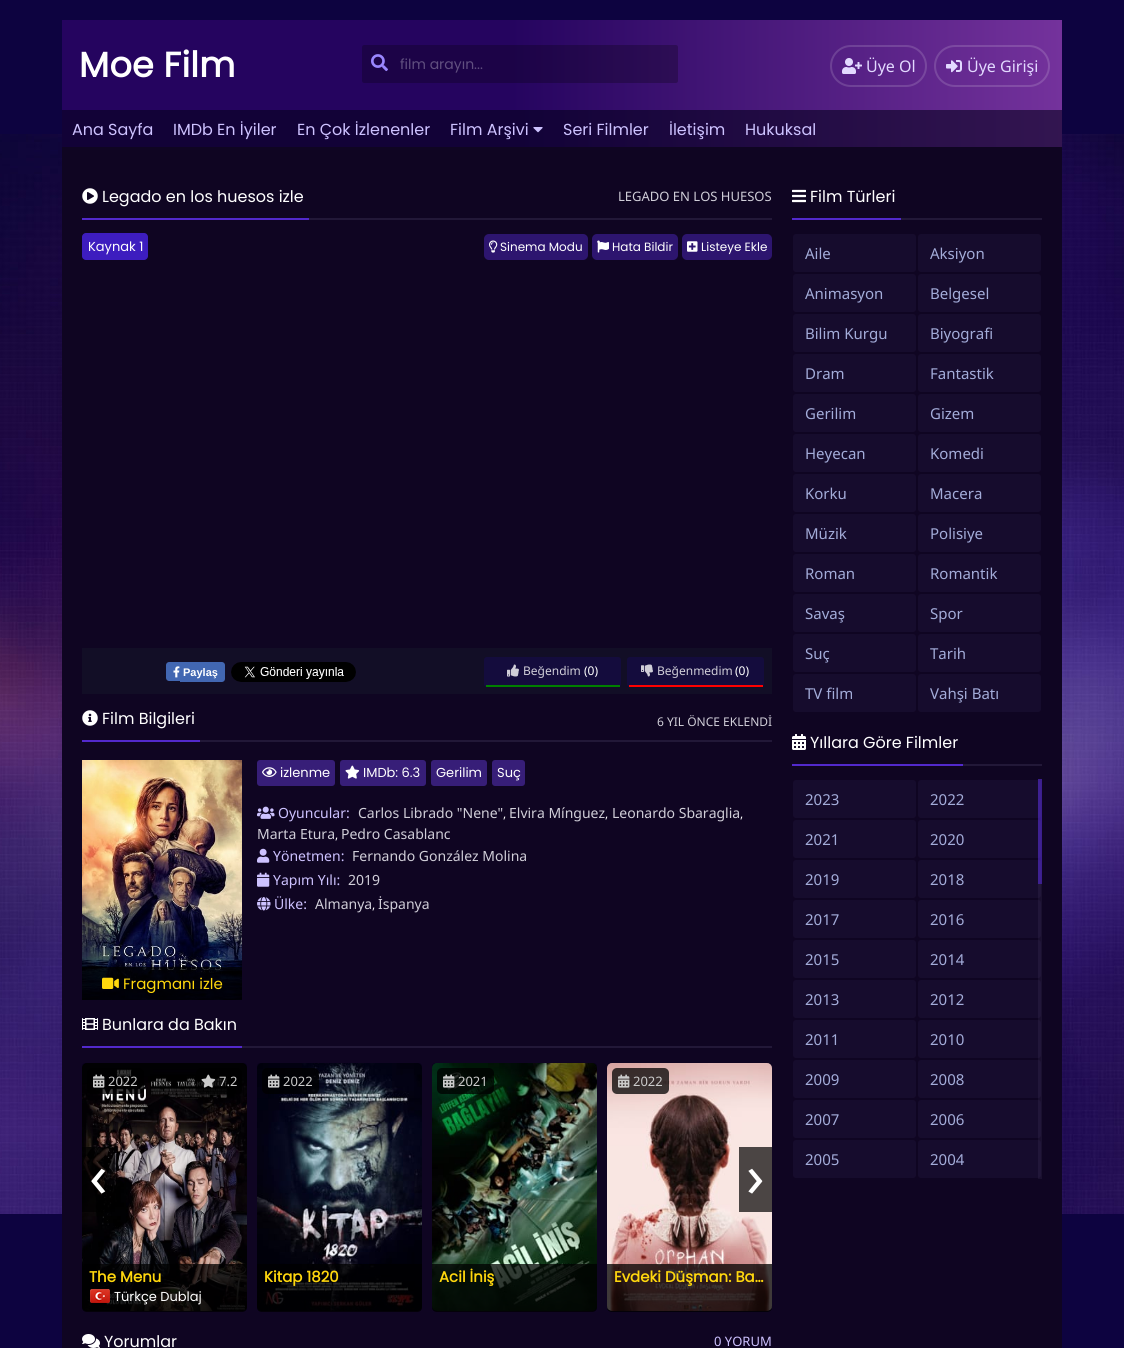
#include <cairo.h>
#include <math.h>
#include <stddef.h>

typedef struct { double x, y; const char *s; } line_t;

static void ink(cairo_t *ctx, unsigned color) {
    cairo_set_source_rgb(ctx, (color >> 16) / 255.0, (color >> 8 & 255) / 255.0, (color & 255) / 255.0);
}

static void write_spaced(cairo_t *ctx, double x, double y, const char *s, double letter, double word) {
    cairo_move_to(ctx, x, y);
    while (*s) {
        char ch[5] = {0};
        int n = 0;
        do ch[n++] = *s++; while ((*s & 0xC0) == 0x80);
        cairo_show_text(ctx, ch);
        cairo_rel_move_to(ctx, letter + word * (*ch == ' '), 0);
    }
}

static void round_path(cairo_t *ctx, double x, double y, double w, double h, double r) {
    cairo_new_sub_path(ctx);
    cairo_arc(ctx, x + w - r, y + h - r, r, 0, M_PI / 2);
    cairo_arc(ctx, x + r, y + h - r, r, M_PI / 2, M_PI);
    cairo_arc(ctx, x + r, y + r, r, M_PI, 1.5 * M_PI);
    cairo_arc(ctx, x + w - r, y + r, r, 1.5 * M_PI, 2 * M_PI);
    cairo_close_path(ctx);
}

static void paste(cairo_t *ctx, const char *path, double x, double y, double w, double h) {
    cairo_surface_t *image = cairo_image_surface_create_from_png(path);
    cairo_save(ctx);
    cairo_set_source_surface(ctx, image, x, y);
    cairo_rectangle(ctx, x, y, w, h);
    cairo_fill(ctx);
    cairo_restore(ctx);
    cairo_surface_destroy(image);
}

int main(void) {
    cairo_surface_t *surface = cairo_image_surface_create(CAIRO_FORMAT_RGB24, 1124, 1348);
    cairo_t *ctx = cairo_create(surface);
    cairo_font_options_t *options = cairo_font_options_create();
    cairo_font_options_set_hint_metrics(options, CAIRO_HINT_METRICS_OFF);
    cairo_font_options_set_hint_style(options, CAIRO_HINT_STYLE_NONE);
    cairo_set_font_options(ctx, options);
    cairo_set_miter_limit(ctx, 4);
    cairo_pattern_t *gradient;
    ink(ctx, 0x0D0340);
    cairo_paint(ctx);
    paste(ctx, "media/1.png", 0, 134, 1124, 1080);
    ink(ctx, 0x0F0522);
    cairo_rectangle(ctx, 62, 147, 1000, 1201);
    cairo_fill(ctx);
    gradient = cairo_pattern_create_linear(62, 84, 1062, 83);
    cairo_pattern_add_color_stop_rgba(gradient, 0.45, 0.145, 0.016, 0.373, 1);
    cairo_pattern_add_color_stop_rgba(gradient, 1, 0.455, 0.196, 0.612, 1);
    cairo_set_source(ctx, gradient);
    cairo_pattern_destroy(gradient);
    cairo_rectangle(ctx, 62, 20, 1000, 127);
    cairo_fill(ctx);
    cairo_select_font_face(ctx, "Poppins", CAIRO_FONT_SLANT_NORMAL, CAIRO_FONT_WEIGHT_BOLD);
    cairo_set_font_size(ctx, 35);
    ink(ctx, 0xFFFFFF);
    write_spaced(ctx, 79, 77, "Moe Film", 0.25, 0);
    round_path(ctx, 831, 46, 95, 40, 20);
    cairo_set_source_rgba(ctx, 1, 1, 1, 0.15);
    cairo_stroke(ctx);
    paste(ctx, "media/2.png", 842, 58, 20, 16);
    cairo_select_font_face(ctx, "Noto Sans", CAIRO_FONT_SLANT_NORMAL, CAIRO_FONT_WEIGHT_NORMAL);
    cairo_set_font_size(ctx, 16);
    ink(ctx, 0xE2D9FF);
    cairo_move_to(ctx, 866, 72);
    cairo_show_text(ctx, "Üye Ol");
    round_path(ctx, 935, 46, 114, 40, 20);
    cairo_set_source_rgba(ctx, 1, 1, 1, 0.15);
    cairo_stroke(ctx);
    paste(ctx, "media/3.png", 946, 60, 16, 13);
    ink(ctx, 0xE2D9FF);
    cairo_move_to(ctx, 967, 72);
    cairo_show_text(ctx, "Üye Girişi");
    cairo_set_source_rgba(ctx, 0.02, 0.004, 0.102, 0.58);
    cairo_rectangle(ctx, 62, 110, 1000, 37);
    cairo_fill(ctx);
    ink(ctx, 0x1C0347);
    cairo_new_path(ctx);
    cairo_move_to(ctx, 364, 45);
    cairo_line_to(ctx, 395, 45);
    cairo_line_to(ctx, 395, 83);
    cairo_line_to(ctx, 364, 83);
    cairo_curve_to(ctx, 363, 83, 362, 82, 362, 81);
    cairo_line_to(ctx, 362, 47);
    cairo_curve_to(ctx, 362, 46, 363, 45, 364, 45);
    cairo_close_path(ctx);
    cairo_fill(ctx);
    paste(ctx, "media/4.png", 371, 54, 17, 18);
    cairo_set_source_rgba(ctx, 0, 0, 0, 0.25);
    cairo_new_path(ctx);
    cairo_move_to(ctx, 395, 45);
    cairo_line_to(ctx, 676, 45);
    cairo_curve_to(ctx, 677, 45, 678, 46, 678, 47);
    cairo_line_to(ctx, 678, 81);
    cairo_curve_to(ctx, 678, 82, 677, 83, 676, 83);
    cairo_line_to(ctx, 395, 83);
    cairo_close_path(ctx);
    cairo_fill(ctx);
    cairo_select_font_face(ctx, "Poppins", CAIRO_FONT_SLANT_NORMAL, CAIRO_FONT_WEIGHT_NORMAL);
    cairo_set_font_size(ctx, 14);
    ink(ctx, 0x604F7F);
    cairo_move_to(ctx, 400, 69);
    cairo_show_text(ctx, "film arayın...");
    cairo_set_font_size(ctx, 16);
    ink(ctx, 0xCDC2FF);
    {
        static const line_t items[] = {
            {72, 135, "Ana Sayfa"},
            {173, 135, "IMDb En İyiler"},
            {297, 135, "En Çok İzlenenler"},
            {450, 135, "Film Arşivi"},
        };
        for (size_t i = 0; i < sizeof items / sizeof *items; i++) {
            cairo_move_to(ctx, items[i].x, items[i].y);
            cairo_show_text(ctx, items[i].s);
        }
    }
    paste(ctx, "media/5.png", 533, 127, 10, 6);
    {
        static const line_t items[] = {
            {563, 135, "Seri Filmler"},
            {669, 135, "İletişim"},
            {745, 135, "Hukuksal"},
        };
        for (size_t i = 0; i < sizeof items / sizeof *items; i++) {
            cairo_move_to(ctx, items[i].x, items[i].y);
            cairo_show_text(ctx, items[i].s);
        }
    }
    ink(ctx, 0x221838);
    cairo_rectangle(ctx, 309, 218, 463, 2);
    cairo_fill(ctx);
    ink(ctx, 0x5229CC);
    cairo_rectangle(ctx, 82, 218, 227, 2);
    cairo_fill(ctx);
    paste(ctx, "media/6.png", 82, 188, 16, 16);
    ink(ctx, 0xFFFFFF);
    cairo_move_to(ctx, 102, 202);
    cairo_show_text(ctx, "Legado en los huesos izle");
    cairo_select_font_face(ctx, "Noto Sans", CAIRO_FONT_SLANT_NORMAL, CAIRO_FONT_WEIGHT_NORMAL);
    cairo_set_font_size(ctx, 13);
    ink(ctx, 0xD0CED8);
    cairo_move_to(ctx, 618, 201);
    cairo_show_text(ctx, "LEGADO EN LOS HUESOS");
    ink(ctx, 0x3D1DBF);
    round_path(ctx, 82, 233, 66, 27, 4);
    cairo_fill(ctx);
    cairo_select_font_face(ctx, "Poppins", CAIRO_FONT_SLANT_NORMAL, CAIRO_FONT_WEIGHT_NORMAL);
    ink(ctx, 0xFFFFFF);
    cairo_move_to(ctx, 88, 251);
    cairo_show_text(ctx, "Kaynak 1");
    ink(ctx, 0x2D156F);
    round_path(ctx, 484, 234, 104, 26, 5);
    cairo_fill(ctx);
    paste(ctx, "media/7.png", 489, 240, 9, 13);
    cairo_set_font_size(ctx, 12);
    ink(ctx, 0xFFFFFF);
    cairo_move_to(ctx, 500, 251);
    cairo_show_text(ctx, "Sinema Modu");
    ink(ctx, 0x2D156F);
    round_path(ctx, 592, 234, 86, 26, 5);
    cairo_fill(ctx);
    paste(ctx, "media/8.png", 597, 240, 12, 13);
    ink(ctx, 0xFFFFFF);
    cairo_move_to(ctx, 612, 251);
    cairo_show_text(ctx, "Hata Bildir");
    ink(ctx, 0x2D156F);
    round_path(ctx, 682, 234, 90, 26, 5);
    cairo_fill(ctx);
    paste(ctx, "media/9.png", 687, 241, 11, 11);
    ink(ctx, 0xFFFFFF);
    cairo_move_to(ctx, 701, 251);
    cairo_show_text(ctx, "Listeye Ekle");
    ink(ctx, 0x120E26);
    cairo_rectangle(ctx, 82, 648, 690, 46);
    cairo_fill(ctx);
    ink(ctx, 0x4267B2);
    cairo_new_path(ctx);
    cairo_move_to(ctx, 169, 662);
    cairo_line_to(ctx, 180, 662);
    cairo_line_to(ctx, 180, 681);
    cairo_line_to(ctx, 169, 681);
    cairo_curve_to(ctx, 167.5, 681, 166, 679.5, 166, 678);
    cairo_line_to(ctx, 166, 665);
    cairo_curve_to(ctx, 166, 663.5, 167.5, 662, 169, 662);
    cairo_close_path(ctx);
    cairo_fill(ctx);
    cairo_new_path(ctx);
    cairo_move_to(ctx, 180, 662);
    cairo_line_to(ctx, 222, 662);
    cairo_curve_to(ctx, 223.5, 662, 225, 663.5, 225, 665);
    cairo_line_to(ctx, 225, 679);
    cairo_curve_to(ctx, 225, 680.5, 223.5, 682, 222, 682);
    cairo_line_to(ctx, 180, 682);
    cairo_close_path(ctx);
    cairo_fill(ctx);
    paste(ctx, "media/10.png", 173, 666, 7, 12);
    cairo_select_font_face(ctx, "Liberation Sans", CAIRO_FONT_SLANT_NORMAL, CAIRO_FONT_WEIGHT_BOLD);
    cairo_set_font_size(ctx, 11);
    ink(ctx, 0xFFFFFF);
    cairo_move_to(ctx, 183, 676);
    cairo_show_text(ctx, "Paylaş");
    paste(ctx, "media/11.png", 231, 662, 125, 20);
    ink(ctx, 0x140C3D);
    round_path(ctx, 484, 657, 137, 30, 3);
    cairo_fill(ctx);
    ink(ctx, 0x008000);
    cairo_rectangle(ctx, 486, 685, 134, 2);
    cairo_fill(ctx);
    paste(ctx, "media/12.png", 507, 664, 12, 13);
    cairo_select_font_face(ctx, "Noto Sans", CAIRO_FONT_SLANT_NORMAL, CAIRO_FONT_WEIGHT_NORMAL);
    cairo_set_font_size(ctx, 12);
    ink(ctx, 0xD0CED8);
    cairo_move_to(ctx, 523, 675);
    cairo_show_text(ctx, "Beğendim");
    ink(ctx, 0xFFFFFF);
    cairo_move_to(ctx, 584, 675);
    cairo_show_text(ctx, "(0)");
    ink(ctx, 0x140C3D);
    round_path(ctx, 627, 657, 137, 30, 3);
    cairo_fill(ctx);
    ink(ctx, 0xFF0000);
    cairo_rectangle(ctx, 629, 685, 134, 2);
    cairo_fill(ctx);
    paste(ctx, "media/13.png", 641, 664, 12, 13);
    ink(ctx, 0xD0CED8);
    cairo_move_to(ctx, 657, 675);
    cairo_show_text(ctx, "Beğenmedim");
    ink(ctx, 0xFFFFFF);
    cairo_move_to(ctx, 735, 675);
    cairo_show_text(ctx, "(0)");
    ink(ctx, 0x221838);
    cairo_rectangle(ctx, 200, 740, 572, 2);
    cairo_fill(ctx);
    ink(ctx, 0x5229CC);
    cairo_rectangle(ctx, 82, 740, 118, 2);
    cairo_fill(ctx);
    paste(ctx, "media/14.png", 82, 710, 16, 16);
    cairo_select_font_face(ctx, "Poppins", CAIRO_FONT_SLANT_NORMAL, CAIRO_FONT_WEIGHT_NORMAL);
    cairo_set_font_size(ctx, 16);
    ink(ctx, 0xFFFFFF);
    cairo_move_to(ctx, 102, 724);
    cairo_show_text(ctx, "Film Bilgileri");
    cairo_select_font_face(ctx, "Noto Sans", CAIRO_FONT_SLANT_NORMAL, CAIRO_FONT_WEIGHT_NORMAL);
    cairo_set_font_size(ctx, 12);
    ink(ctx, 0xD0CED8);
    cairo_move_to(ctx, 657, 726);
    cairo_show_text(ctx, "6 YIL ÖNCE EKLENDİ");
    ink(ctx, 0x371E78);
    round_path(ctx, 257, 760, 78, 26, 3);
    cairo_fill(ctx);
    paste(ctx, "media/15.png", 262, 767, 15, 10);
    cairo_select_font_face(ctx, "Poppins", CAIRO_FONT_SLANT_NORMAL, CAIRO_FONT_WEIGHT_NORMAL);
    cairo_set_font_size(ctx, 13);
    ink(ctx, 0xFFFFFF);
    cairo_move_to(ctx, 280, 777);
    cairo_show_text(ctx, "izlenme");
    ink(ctx, 0x371E78);
    round_path(ctx, 340, 760, 86, 26, 3);
    cairo_fill(ctx);
    paste(ctx, "media/16.png", 345, 765, 15, 14);
    ink(ctx, 0xFFFFFF);
    cairo_move_to(ctx, 363, 777);
    cairo_show_text(ctx, "IMDb: 6.3");
    ink(ctx, 0x371E78);
    round_path(ctx, 431, 760, 56, 26, 3);
    cairo_fill(ctx);
    ink(ctx, 0xFFFFFF);
    cairo_move_to(ctx, 436, 777);
    cairo_show_text(ctx, "Gerilim");
    ink(ctx, 0x371E78);
    round_path(ctx, 492, 760, 33, 26, 3);
    cairo_fill(ctx);
    ink(ctx, 0xFFFFFF);
    cairo_move_to(ctx, 497, 777);
    cairo_show_text(ctx, "Suç");
    paste(ctx, "media/17.png", 257, 806, 18, 13);
    cairo_select_font_face(ctx, "Noto Sans", CAIRO_FONT_SLANT_NORMAL, CAIRO_FONT_WEIGHT_NORMAL);
    cairo_set_font_size(ctx, 14);
    ink(ctx, 0xCDC2FF);
    cairo_move_to(ctx, 278, 818);
    cairo_show_text(ctx, "Oyuncular:");
    ink(ctx, 0xD0CED8);
    cairo_move_to(ctx, 358, 818);
    cairo_show_text(ctx, "Carlos Librado \"Nene\"");
    cairo_set_font_size(ctx, 12);
    ink(ctx, 0xFFFFFF);
    cairo_move_to(ctx, 503, 818);
    cairo_show_text(ctx, ",");
    cairo_set_font_size(ctx, 14);
    ink(ctx, 0xD0CED8);
    cairo_move_to(ctx, 509, 818);
    cairo_show_text(ctx, "Elvira Mínguez");
    cairo_set_font_size(ctx, 12);
    ink(ctx, 0xFFFFFF);
    cairo_move_to(ctx, 605, 818);
    cairo_show_text(ctx, ",");
    cairo_set_font_size(ctx, 14);
    ink(ctx, 0xD0CED8);
    cairo_move_to(ctx, 612, 818);
    cairo_show_text(ctx, "Leonardo Sbaraglia");
    cairo_set_font_size(ctx, 12);
    ink(ctx, 0xFFFFFF);
    cairo_move_to(ctx, 740, 818);
    cairo_show_text(ctx, ",");
    cairo_set_font_size(ctx, 14);
    ink(ctx, 0xD0CED8);
    cairo_move_to(ctx, 257, 839);
    cairo_show_text(ctx, "Marta Etura");
    cairo_set_font_size(ctx, 12);
    ink(ctx, 0xFFFFFF);
    cairo_move_to(ctx, 335, 839);
    cairo_show_text(ctx, ",");
    cairo_set_font_size(ctx, 14);
    ink(ctx, 0xD0CED8);
    cairo_move_to(ctx, 341, 839);
    cairo_show_text(ctx, "Pedro Casablanc");
    paste(ctx, "media/18.png", 257, 848, 13, 15);
    ink(ctx, 0xCDC2FF);
    cairo_move_to(ctx, 273, 861);
    cairo_show_text(ctx, "Yönetmen:");
    ink(ctx, 0xD0CED8);
    cairo_move_to(ctx, 352, 861);
    cairo_show_text(ctx, "Fernando González Molina");
    paste(ctx, "media/19.png", 257, 872, 13, 15);
    ink(ctx, 0xCDC2FF);
    cairo_move_to(ctx, 273, 885);
    cairo_show_text(ctx, "Yapım Yılı:");
    ink(ctx, 0xD0CED8);
    cairo_move_to(ctx, 348, 885);
    cairo_show_text(ctx, "2019");
    paste(ctx, "media/20.png", 257, 897, 14, 14);
    ink(ctx, 0xCDC2FF);
    cairo_move_to(ctx, 274, 909);
    cairo_show_text(ctx, "Ülke:");
    ink(ctx, 0xD0CED8);
    cairo_move_to(ctx, 315, 909);
    cairo_show_text(ctx, "Almanya");
    cairo_set_font_size(ctx, 12);
    ink(ctx, 0xFFFFFF);
    cairo_move_to(ctx, 372, 909);
    cairo_show_text(ctx, ",");
    cairo_set_font_size(ctx, 14);
    ink(ctx, 0xD0CED8);
    cairo_move_to(ctx, 378, 909);
    cairo_show_text(ctx, "İspanya");
    paste(ctx, "media/21.png", 82, 760, 160, 240);
    cairo_set_source_rgba(ctx, 0, 0, 0, 0.75);
    cairo_rectangle(ctx, 82, 967, 160, 33);
    cairo_fill(ctx);
    paste(ctx, "media/22.png", 102, 977, 17, 12);
    cairo_select_font_face(ctx, "Poppins", CAIRO_FONT_SLANT_NORMAL, CAIRO_FONT_WEIGHT_NORMAL);
    cairo_set_font_size(ctx, 15);
    ink(ctx, 0xFFD70D);
    cairo_move_to(ctx, 123, 989);
    cairo_show_text(ctx, "Fragmanı izle");
    ink(ctx, 0x221838);
    cairo_rectangle(ctx, 242, 1046, 530, 2);
    cairo_fill(ctx);
    ink(ctx, 0x5229CC);
    cairo_rectangle(ctx, 82, 1046, 160, 2);
    cairo_fill(ctx);
    paste(ctx, "media/23.png", 82, 1018, 16, 12);
    cairo_set_font_size(ctx, 16);
    ink(ctx, 0xFFFFFF);
    cairo_move_to(ctx, 102, 1030);
    cairo_show_text(ctx, "Bunlara da Bakın");
    cairo_set_source_rgba(ctx, 0.02, 0.004, 0.102, 0.58);
    round_path(ctx, 82, 1063, 165, 248, 3);
    cairo_fill(ctx);
    paste(ctx, "media/24.png", 82, 1063, 165, 248);
    cairo_set_source_rgba(ctx, 0, 0, 0, 0.75);
    round_path(ctx, 87, 1068, 57, 26, 5);
    cairo_fill(ctx);
    paste(ctx, "media/25.png", 93, 1074, 12, 14);
    cairo_select_font_face(ctx, "Noto Sans", CAIRO_FONT_SLANT_NORMAL, CAIRO_FONT_WEIGHT_NORMAL);
    cairo_set_font_size(ctx, 13);
    ink(ctx, 0xCCCCCC);
    cairo_move_to(ctx, 108, 1086);
    cairo_show_text(ctx, "2022");
    cairo_set_source_rgba(ctx, 0, 0, 0, 0.75);
    round_path(ctx, 196, 1068, 46, 26, 5);
    cairo_fill(ctx);
    paste(ctx, "media/26.png", 201, 1074, 15, 14);
    ink(ctx, 0xCCCCCC);
    cairo_move_to(ctx, 219, 1086);
    cairo_show_text(ctx, "7.2");
    cairo_set_source_rgba(ctx, 0, 0, 0, 0.75);
    cairo_new_path(ctx);
    cairo_move_to(ctx, 82, 1264);
    cairo_line_to(ctx, 247, 1264);
    cairo_line_to(ctx, 247, 1307);
    cairo_curve_to(ctx, 247, 1310, 245, 1312, 242, 1312);
    cairo_line_to(ctx, 87, 1312);
    cairo_curve_to(ctx, 84, 1312, 82, 1310, 82, 1307);
    cairo_close_path(ctx);
    cairo_fill(ctx);
    cairo_select_font_face(ctx, "Poppins", CAIRO_FONT_SLANT_NORMAL, CAIRO_FONT_WEIGHT_BOLD);
    cairo_set_font_size(ctx, 15);
    ink(ctx, 0xFFD70D);
    cairo_move_to(ctx, 89, 1282);
    cairo_show_text(ctx, "The Menu");
    paste(ctx, "media/27.png", 90, 1289, 20, 14);
    cairo_select_font_face(ctx, "Poppins", CAIRO_FONT_SLANT_NORMAL, CAIRO_FONT_WEIGHT_NORMAL);
    cairo_set_font_size(ctx, 13);
    ink(ctx, 0xFFFFFF);
    cairo_move_to(ctx, 114, 1301);
    cairo_show_text(ctx, "Türkçe Dublaj");
    cairo_set_source_rgba(ctx, 0.02, 0.004, 0.102, 0.58);
    round_path(ctx, 257, 1063, 165, 248, 3);
    cairo_fill(ctx);
    paste(ctx, "media/28.png", 257, 1063, 165, 248);
    cairo_set_source_rgba(ctx, 0, 0, 0, 0.75);
    round_path(ctx, 262, 1068, 57, 26, 5);
    cairo_fill(ctx);
    paste(ctx, "media/29.png", 268, 1074, 12, 14);
    cairo_select_font_face(ctx, "Noto Sans", CAIRO_FONT_SLANT_NORMAL, CAIRO_FONT_WEIGHT_NORMAL);
    ink(ctx, 0xCCCCCC);
    cairo_move_to(ctx, 283, 1086);
    cairo_show_text(ctx, "2022");
    cairo_set_source_rgba(ctx, 0, 0, 0, 0.75);
    cairo_new_path(ctx);
    cairo_move_to(ctx, 257, 1264);
    cairo_line_to(ctx, 422, 1264);
    cairo_line_to(ctx, 422, 1307);
    cairo_curve_to(ctx, 422, 1310, 420, 1312, 417, 1312);
    cairo_line_to(ctx, 262, 1312);
    cairo_curve_to(ctx, 259, 1312, 257, 1310, 257, 1307);
    cairo_close_path(ctx);
    cairo_fill(ctx);
    cairo_select_font_face(ctx, "Poppins", CAIRO_FONT_SLANT_NORMAL, CAIRO_FONT_WEIGHT_BOLD);
    cairo_set_font_size(ctx, 15);
    ink(ctx, 0xFFD70D);
    cairo_move_to(ctx, 264, 1282);
    cairo_show_text(ctx, "Kitap 1820");
    cairo_set_source_rgba(ctx, 0.02, 0.004, 0.102, 0.58);
    round_path(ctx, 432, 1063, 165, 248, 3);
    cairo_fill(ctx);
    paste(ctx, "media/30.png", 432, 1063, 165, 248);
    cairo_set_source_rgba(ctx, 0, 0, 0, 0.75);
    round_path(ctx, 437, 1068, 57, 26, 5);
    cairo_fill(ctx);
    paste(ctx, "media/31.png", 443, 1074, 12, 14);
    cairo_select_font_face(ctx, "Noto Sans", CAIRO_FONT_SLANT_NORMAL, CAIRO_FONT_WEIGHT_NORMAL);
    cairo_set_font_size(ctx, 13);
    ink(ctx, 0xCCCCCC);
    cairo_move_to(ctx, 458, 1086);
    cairo_show_text(ctx, "2021");
    cairo_set_source_rgba(ctx, 0, 0, 0, 0.75);
    cairo_new_path(ctx);
    cairo_move_to(ctx, 432, 1264);
    cairo_line_to(ctx, 597, 1264);
    cairo_line_to(ctx, 597, 1307);
    cairo_curve_to(ctx, 597, 1310, 595, 1312, 592, 1312);
    cairo_line_to(ctx, 437, 1312);
    cairo_curve_to(ctx, 434, 1312, 432, 1310, 432, 1307);
    cairo_close_path(ctx);
    cairo_fill(ctx);
    cairo_select_font_face(ctx, "Poppins", CAIRO_FONT_SLANT_NORMAL, CAIRO_FONT_WEIGHT_BOLD);
    cairo_set_font_size(ctx, 15);
    ink(ctx, 0xFFD70D);
    cairo_move_to(ctx, 439, 1282);
    cairo_show_text(ctx, "Acil İniş");
    cairo_set_source_rgba(ctx, 0.02, 0.004, 0.102, 0.58);
    round_path(ctx, 607, 1063, 165, 248, 3);
    cairo_fill(ctx);
    paste(ctx, "media/32.png", 607, 1063, 165, 248);
    cairo_set_source_rgba(ctx, 0, 0, 0, 0.75);
    round_path(ctx, 612, 1068, 57, 26, 5);
    cairo_fill(ctx);
    paste(ctx, "media/33.png", 618, 1074, 12, 14);
    cairo_select_font_face(ctx, "Noto Sans", CAIRO_FONT_SLANT_NORMAL, CAIRO_FONT_WEIGHT_NORMAL);
    cairo_set_font_size(ctx, 13);
    ink(ctx, 0xCCCCCC);
    cairo_move_to(ctx, 633, 1086);
    cairo_show_text(ctx, "2022");
    cairo_set_source_rgba(ctx, 0, 0, 0, 0.75);
    cairo_new_path(ctx);
    cairo_move_to(ctx, 607, 1264);
    cairo_line_to(ctx, 772, 1264);
    cairo_line_to(ctx, 772, 1307);
    cairo_curve_to(ctx, 772, 1310, 770, 1312, 767, 1312);
    cairo_line_to(ctx, 612, 1312);
    cairo_curve_to(ctx, 609, 1312, 607, 1310, 607, 1307);
    cairo_close_path(ctx);
    cairo_fill(ctx);
    cairo_select_font_face(ctx, "Poppins", CAIRO_FONT_SLANT_NORMAL, CAIRO_FONT_WEIGHT_BOLD);
    cairo_set_font_size(ctx, 15);
    ink(ctx, 0xFFD70D);
    cairo_move_to(ctx, 614, 1282);
    cairo_show_text(ctx, "Evdeki Düşman: Ba…");
    cairo_set_source_rgba(ctx, 0, 0, 0, 0.7);
    cairo_rectangle(ctx, 82, 1147, 33, 65);
    cairo_fill(ctx);
    cairo_select_font_face(ctx, "Noto Sans", CAIRO_FONT_SLANT_NORMAL, CAIRO_FONT_WEIGHT_NORMAL);
    cairo_set_font_size(ctx, 60);
    ink(ctx, 0xFFFFFF);
    cairo_move_to(ctx, 89, 1197);
    cairo_show_text(ctx, "‹");
    ink(ctx, 0x4B4544);
    cairo_rectangle(ctx, 739, 1147, 33, 65);
    cairo_fill(ctx);
    ink(ctx, 0xFFFFFF);
    cairo_move_to(ctx, 746, 1197);
    cairo_show_text(ctx, "›");
    paste(ctx, "media/34.png", 82, 1334, 18, 14);
    cairo_select_font_face(ctx, "Poppins", CAIRO_FONT_SLANT_NORMAL, CAIRO_FONT_WEIGHT_NORMAL);
    cairo_set_font_size(ctx, 16);
    cairo_move_to(ctx, 104, 1347);
    cairo_show_text(ctx, "Yorumlar");
    cairo_select_font_face(ctx, "Noto Sans", CAIRO_FONT_SLANT_NORMAL, CAIRO_FONT_WEIGHT_NORMAL);
    cairo_set_font_size(ctx, 13);
    ink(ctx, 0xCDC2FF);
    cairo_move_to(ctx, 714, 1346);
    cairo_show_text(ctx, "0 YORUM");
    ink(ctx, 0x221838);
    cairo_rectangle(ctx, 901, 218, 141, 2);
    cairo_fill(ctx);
    ink(ctx, 0x5229CC);
    cairo_rectangle(ctx, 792, 218, 109, 2);
    cairo_fill(ctx);
    paste(ctx, "media/35.png", 792, 189, 14, 14);
    cairo_select_font_face(ctx, "Poppins", CAIRO_FONT_SLANT_NORMAL, CAIRO_FONT_WEIGHT_NORMAL);
    cairo_set_font_size(ctx, 16);
    ink(ctx, 0xFFFFFF);
    cairo_move_to(ctx, 810, 202);
    cairo_show_text(ctx, "Film Türleri");
    ink(ctx, 0x160C2D);
    round_path(ctx, 793, 234, 123, 38, 3);
    cairo_fill(ctx);
    cairo_select_font_face(ctx, "Noto Sans", CAIRO_FONT_SLANT_NORMAL, CAIRO_FONT_WEIGHT_NORMAL);
    cairo_set_font_size(ctx, 15);
    ink(ctx, 0xA3ACD9);
    cairo_move_to(ctx, 805, 259);
    cairo_show_text(ctx, "Aile");
    ink(ctx, 0x160C2D);
    round_path(ctx, 918, 234, 123, 38, 3);
    cairo_fill(ctx);
    ink(ctx, 0xA3ACD9);
    cairo_move_to(ctx, 930, 259);
    cairo_show_text(ctx, "Aksiyon");
    ink(ctx, 0x160C2D);
    round_path(ctx, 793, 274, 123, 38, 3);
    cairo_fill(ctx);
    ink(ctx, 0xA3ACD9);
    cairo_move_to(ctx, 805, 299);
    cairo_show_text(ctx, "Animasyon");
    ink(ctx, 0x160C2D);
    round_path(ctx, 918, 274, 123, 38, 3);
    cairo_fill(ctx);
    ink(ctx, 0xA3ACD9);
    cairo_move_to(ctx, 930, 299);
    cairo_show_text(ctx, "Belgesel");
    ink(ctx, 0x160C2D);
    round_path(ctx, 793, 314, 123, 38, 3);
    cairo_fill(ctx);
    ink(ctx, 0xA3ACD9);
    cairo_move_to(ctx, 805, 339);
    cairo_show_text(ctx, "Bilim Kurgu");
    ink(ctx, 0x160C2D);
    round_path(ctx, 918, 314, 123, 38, 3);
    cairo_fill(ctx);
    ink(ctx, 0xA3ACD9);
    cairo_move_to(ctx, 930, 339);
    cairo_show_text(ctx, "Biyografi");
    ink(ctx, 0x160C2D);
    round_path(ctx, 793, 354, 123, 38, 3);
    cairo_fill(ctx);
    ink(ctx, 0xA3ACD9);
    cairo_move_to(ctx, 805, 379);
    cairo_show_text(ctx, "Dram");
    ink(ctx, 0x160C2D);
    round_path(ctx, 918, 354, 123, 38, 3);
    cairo_fill(ctx);
    ink(ctx, 0xA3ACD9);
    cairo_move_to(ctx, 930, 379);
    cairo_show_text(ctx, "Fantastik");
    ink(ctx, 0x160C2D);
    round_path(ctx, 793, 394, 123, 38, 3);
    cairo_fill(ctx);
    ink(ctx, 0xA3ACD9);
    cairo_move_to(ctx, 805, 419);
    cairo_show_text(ctx, "Gerilim");
    ink(ctx, 0x160C2D);
    round_path(ctx, 918, 394, 123, 38, 3);
    cairo_fill(ctx);
    ink(ctx, 0xA3ACD9);
    cairo_move_to(ctx, 930, 419);
    cairo_show_text(ctx, "Gizem");
    ink(ctx, 0x160C2D);
    round_path(ctx, 793, 434, 123, 38, 3);
    cairo_fill(ctx);
    ink(ctx, 0xA3ACD9);
    cairo_move_to(ctx, 805, 459);
    cairo_show_text(ctx, "Heyecan");
    ink(ctx, 0x160C2D);
    round_path(ctx, 918, 434, 123, 38, 3);
    cairo_fill(ctx);
    ink(ctx, 0xA3ACD9);
    cairo_move_to(ctx, 930, 459);
    cairo_show_text(ctx, "Komedi");
    ink(ctx, 0x160C2D);
    round_path(ctx, 793, 474, 123, 38, 3);
    cairo_fill(ctx);
    ink(ctx, 0xA3ACD9);
    cairo_move_to(ctx, 805, 499);
    cairo_show_text(ctx, "Korku");
    ink(ctx, 0x160C2D);
    round_path(ctx, 918, 474, 123, 38, 3);
    cairo_fill(ctx);
    ink(ctx, 0xA3ACD9);
    cairo_move_to(ctx, 930, 499);
    cairo_show_text(ctx, "Macera");
    ink(ctx, 0x160C2D);
    round_path(ctx, 793, 514, 123, 38, 3);
    cairo_fill(ctx);
    ink(ctx, 0xA3ACD9);
    cairo_move_to(ctx, 805, 539);
    cairo_show_text(ctx, "Müzik");
    ink(ctx, 0x160C2D);
    round_path(ctx, 918, 514, 123, 38, 3);
    cairo_fill(ctx);
    ink(ctx, 0xA3ACD9);
    cairo_move_to(ctx, 930, 539);
    cairo_show_text(ctx, "Polisiye");
    ink(ctx, 0x160C2D);
    round_path(ctx, 793, 554, 123, 38, 3);
    cairo_fill(ctx);
    ink(ctx, 0xA3ACD9);
    cairo_move_to(ctx, 805, 579);
    cairo_show_text(ctx, "Roman");
    ink(ctx, 0x160C2D);
    round_path(ctx, 918, 554, 123, 38, 3);
    cairo_fill(ctx);
    ink(ctx, 0xA3ACD9);
    cairo_move_to(ctx, 930, 579);
    cairo_show_text(ctx, "Romantik");
    ink(ctx, 0x160C2D);
    round_path(ctx, 793, 594, 123, 38, 3);
    cairo_fill(ctx);
    ink(ctx, 0xA3ACD9);
    cairo_move_to(ctx, 805, 619);
    cairo_show_text(ctx, "Savaş");
    ink(ctx, 0x160C2D);
    round_path(ctx, 918, 594, 123, 38, 3);
    cairo_fill(ctx);
    ink(ctx, 0xA3ACD9);
    cairo_move_to(ctx, 930, 619);
    cairo_show_text(ctx, "Spor");
    ink(ctx, 0x160C2D);
    round_path(ctx, 793, 634, 123, 38, 3);
    cairo_fill(ctx);
    ink(ctx, 0xA3ACD9);
    cairo_move_to(ctx, 805, 659);
    cairo_show_text(ctx, "Suç");
    ink(ctx, 0x160C2D);
    round_path(ctx, 918, 634, 123, 38, 3);
    cairo_fill(ctx);
    ink(ctx, 0xA3ACD9);
    cairo_move_to(ctx, 930, 659);
    cairo_show_text(ctx, "Tarih");
    ink(ctx, 0x160C2D);
    round_path(ctx, 793, 674, 123, 38, 3);
    cairo_fill(ctx);
    ink(ctx, 0xA3ACD9);
    cairo_move_to(ctx, 805, 699);
    cairo_show_text(ctx, "TV film");
    ink(ctx, 0x160C2D);
    round_path(ctx, 918, 674, 123, 38, 3);
    cairo_fill(ctx);
    ink(ctx, 0xA3ACD9);
    cairo_move_to(ctx, 930, 699);
    cairo_show_text(ctx, "Vahşi Batı");
    ink(ctx, 0x221838);
    cairo_rectangle(ctx, 963, 764, 79, 2);
    cairo_fill(ctx);
    ink(ctx, 0x5229CC);
    cairo_rectangle(ctx, 792, 764, 171, 2);
    cairo_fill(ctx);
    paste(ctx, "media/36.png", 792, 734, 14, 16);
    cairo_select_font_face(ctx, "Poppins", CAIRO_FONT_SLANT_NORMAL, CAIRO_FONT_WEIGHT_NORMAL);
    cairo_set_font_size(ctx, 16);
    ink(ctx, 0xFFFFFF);
    cairo_move_to(ctx, 810, 748);
    cairo_show_text(ctx, "Yıllara Göre Filmler");
    ink(ctx, 0x160C2D);
    round_path(ctx, 793, 780, 123, 38, 3);
    cairo_fill(ctx);
    cairo_select_font_face(ctx, "Noto Sans", CAIRO_FONT_SLANT_NORMAL, CAIRO_FONT_WEIGHT_NORMAL);
    cairo_set_font_size(ctx, 15);
    ink(ctx, 0xA3ACD9);
    cairo_move_to(ctx, 805, 805);
    cairo_show_text(ctx, "2023");
    ink(ctx, 0x160C2D);
    round_path(ctx, 918, 780, 123, 38, 3);
    cairo_fill(ctx);
    ink(ctx, 0xA3ACD9);
    cairo_move_to(ctx, 930, 805);
    cairo_show_text(ctx, "2022");
    ink(ctx, 0x160C2D);
    round_path(ctx, 918, 820, 123, 38, 3);
    cairo_fill(ctx);
    round_path(ctx, 918, 860, 123, 38, 3);
    cairo_fill(ctx);
    round_path(ctx, 918, 900, 123, 38, 3);
    cairo_fill(ctx);
    round_path(ctx, 918, 940, 123, 38, 3);
    cairo_fill(ctx);
    round_path(ctx, 918, 980, 123, 38, 3);
    cairo_fill(ctx);
    round_path(ctx, 918, 1020, 123, 38, 3);
    cairo_fill(ctx);
    round_path(ctx, 918, 1060, 123, 38, 3);
    cairo_fill(ctx);
    round_path(ctx, 918, 1100, 123, 38, 3);
    cairo_fill(ctx);
    round_path(ctx, 918, 1140, 123, 38, 3);
    cairo_fill(ctx);
    cairo_set_source_rgba(ctx, 0.804, 0.761, 1, 0.06);
    cairo_rectangle(ctx, 1038, 779, 4, 400);
    cairo_fill(ctx);
    cairo_set_source_rgba(ctx, 0.322, 0.161, 0.8, 0.6);
    cairo_rectangle(ctx, 1038, 779, 4, 105);
    cairo_fill(ctx);
    ink(ctx, 0x160C2D);
    round_path(ctx, 793, 820, 123, 38, 3);
    cairo_fill(ctx);
    ink(ctx, 0xA3ACD9);
    cairo_move_to(ctx, 805, 845);
    cairo_show_text(ctx, "2021");
    cairo_move_to(ctx, 930, 845);
    cairo_show_text(ctx, "2020");
    ink(ctx, 0x160C2D);
    round_path(ctx, 793, 860, 123, 38, 3);
    cairo_fill(ctx);
    ink(ctx, 0xA3ACD9);
    cairo_move_to(ctx, 805, 885);
    cairo_show_text(ctx, "2019");
    cairo_move_to(ctx, 930, 885);
    cairo_show_text(ctx, "2018");
    ink(ctx, 0x160C2D);
    round_path(ctx, 793, 900, 123, 38, 3);
    cairo_fill(ctx);
    ink(ctx, 0xA3ACD9);
    cairo_move_to(ctx, 805, 925);
    cairo_show_text(ctx, "2017");
    cairo_move_to(ctx, 930, 925);
    cairo_show_text(ctx, "2016");
    ink(ctx, 0x160C2D);
    round_path(ctx, 793, 940, 123, 38, 3);
    cairo_fill(ctx);
    ink(ctx, 0xA3ACD9);
    cairo_move_to(ctx, 805, 965);
    cairo_show_text(ctx, "2015");
    cairo_move_to(ctx, 930, 965);
    cairo_show_text(ctx, "2014");
    ink(ctx, 0x160C2D);
    round_path(ctx, 793, 980, 123, 38, 3);
    cairo_fill(ctx);
    ink(ctx, 0xA3ACD9);
    cairo_move_to(ctx, 805, 1005);
    cairo_show_text(ctx, "2013");
    cairo_move_to(ctx, 930, 1005);
    cairo_show_text(ctx, "2012");
    ink(ctx, 0x160C2D);
    round_path(ctx, 793, 1020, 123, 38, 3);
    cairo_fill(ctx);
    ink(ctx, 0xA3ACD9);
    cairo_move_to(ctx, 805, 1045);
    cairo_show_text(ctx, "2011");
    cairo_move_to(ctx, 930, 1045);
    cairo_show_text(ctx, "2010");
    ink(ctx, 0x160C2D);
    round_path(ctx, 793, 1060, 123, 38, 3);
    cairo_fill(ctx);
    ink(ctx, 0xA3ACD9);
    cairo_move_to(ctx, 805, 1085);
    cairo_show_text(ctx, "2009");
    cairo_move_to(ctx, 930, 1085);
    cairo_show_text(ctx, "2008");
    ink(ctx, 0x160C2D);
    round_path(ctx, 793, 1100, 123, 38, 3);
    cairo_fill(ctx);
    ink(ctx, 0xA3ACD9);
    cairo_move_to(ctx, 805, 1125);
    cairo_show_text(ctx, "2007");
    cairo_move_to(ctx, 930, 1125);
    cairo_show_text(ctx, "2006");
    ink(ctx, 0x160C2D);
    round_path(ctx, 793, 1140, 123, 38, 3);
    cairo_fill(ctx);
    ink(ctx, 0xA3ACD9);
    cairo_move_to(ctx, 805, 1165);
    cairo_show_text(ctx, "2005");
    cairo_move_to(ctx, 930, 1165);
    cairo_show_text(ctx, "2004");
    cairo_surface_write_to_png(surface, "image.png");
    cairo_font_options_destroy(options);
    cairo_destroy(ctx);
    cairo_surface_destroy(surface);
    return 0;
}
